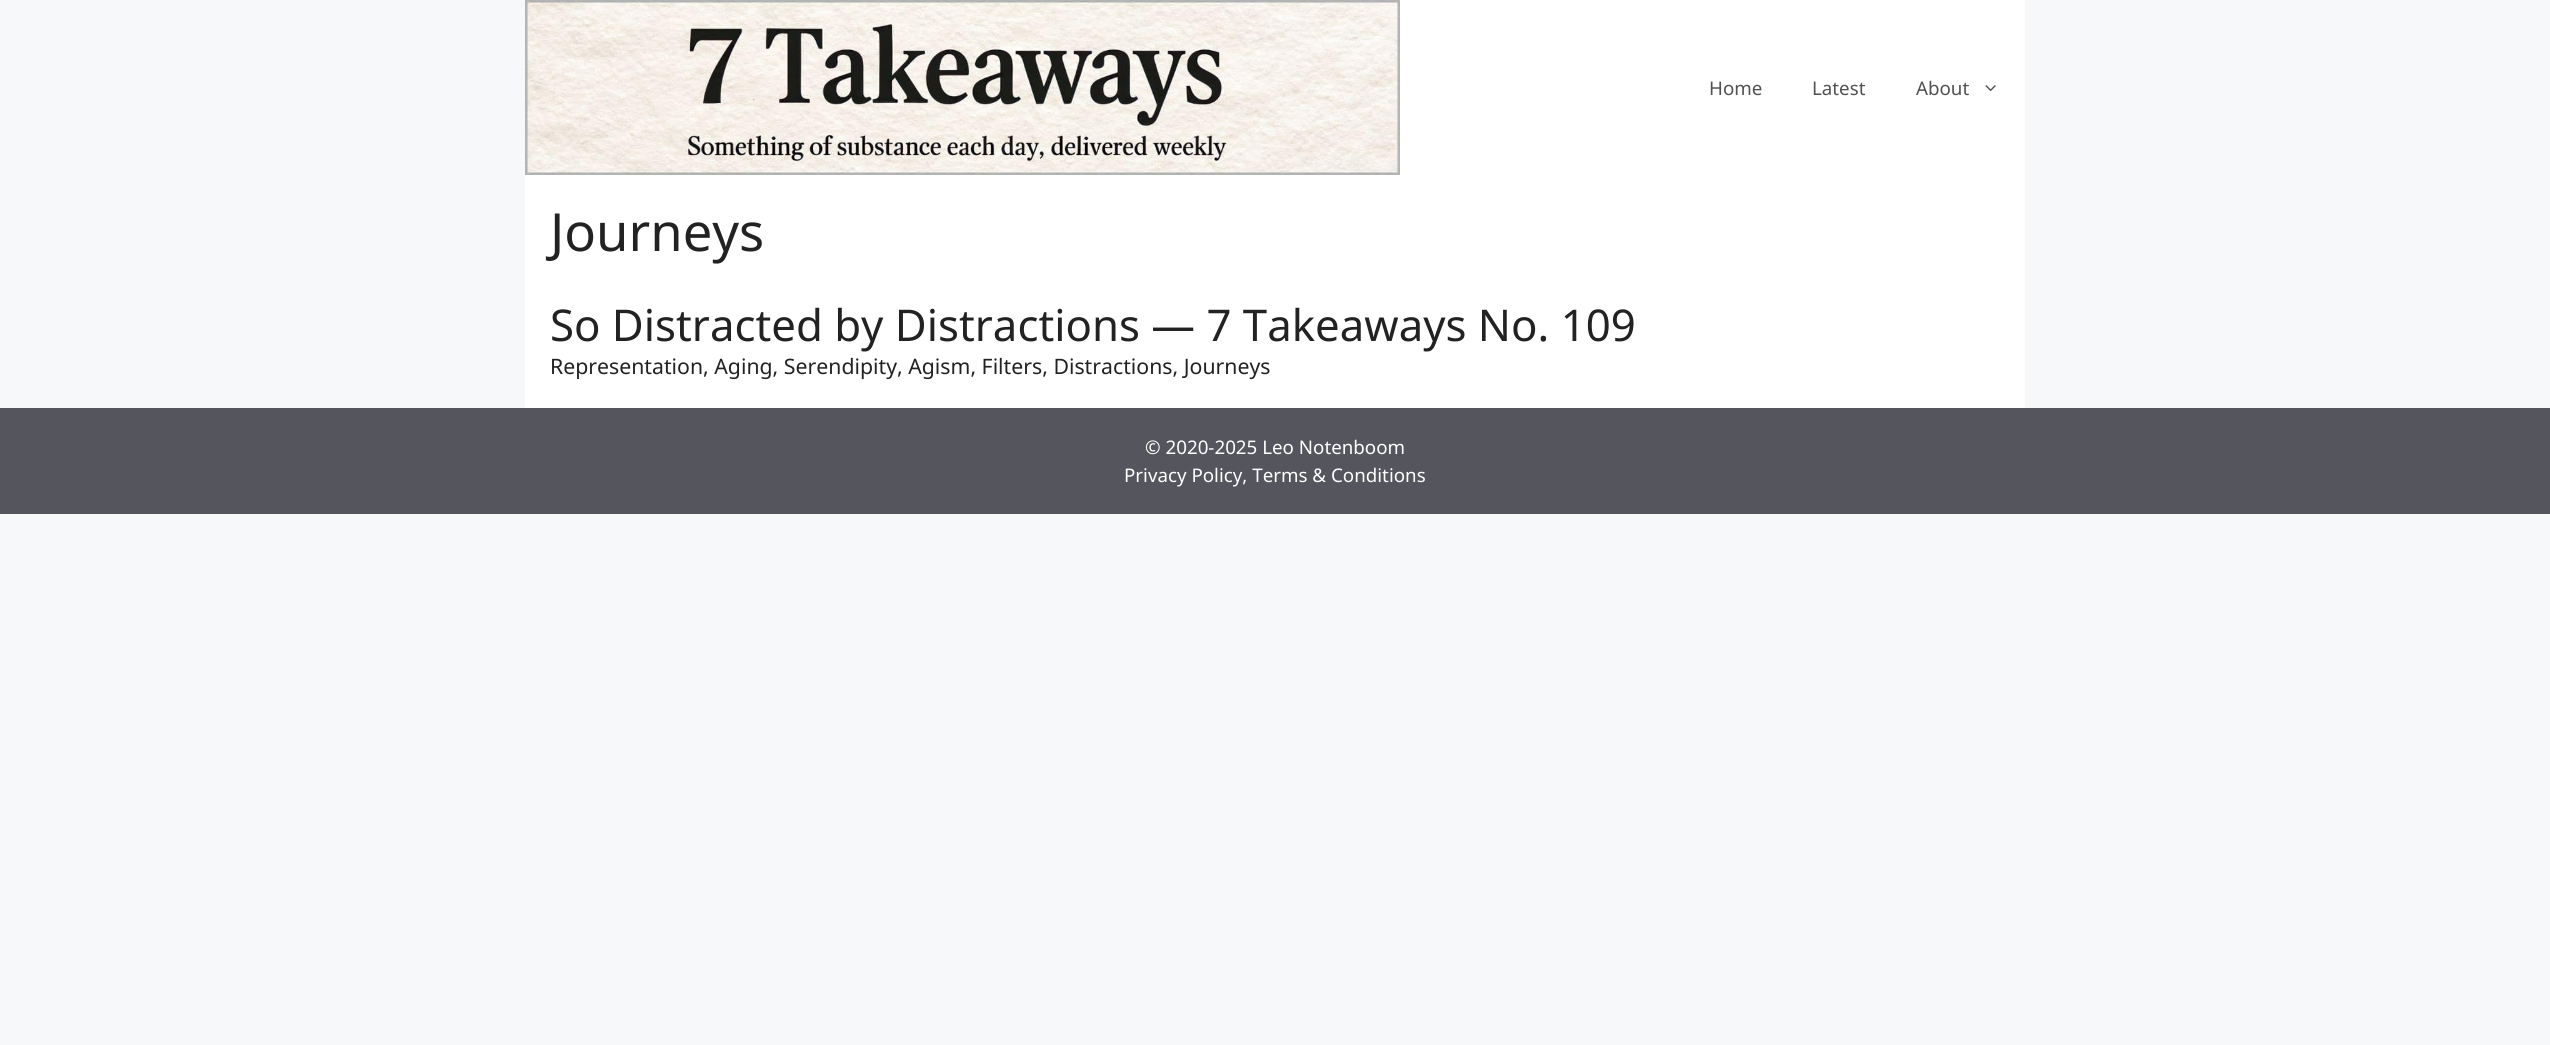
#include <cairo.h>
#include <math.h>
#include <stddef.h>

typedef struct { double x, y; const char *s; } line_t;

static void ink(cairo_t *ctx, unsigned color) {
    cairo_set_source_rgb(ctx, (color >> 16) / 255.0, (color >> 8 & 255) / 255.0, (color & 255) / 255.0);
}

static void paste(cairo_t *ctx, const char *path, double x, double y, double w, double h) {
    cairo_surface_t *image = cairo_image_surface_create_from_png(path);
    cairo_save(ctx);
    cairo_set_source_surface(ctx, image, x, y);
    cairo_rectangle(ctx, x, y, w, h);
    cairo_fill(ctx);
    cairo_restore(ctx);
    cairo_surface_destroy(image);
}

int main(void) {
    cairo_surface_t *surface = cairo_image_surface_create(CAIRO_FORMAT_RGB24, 2550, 1045);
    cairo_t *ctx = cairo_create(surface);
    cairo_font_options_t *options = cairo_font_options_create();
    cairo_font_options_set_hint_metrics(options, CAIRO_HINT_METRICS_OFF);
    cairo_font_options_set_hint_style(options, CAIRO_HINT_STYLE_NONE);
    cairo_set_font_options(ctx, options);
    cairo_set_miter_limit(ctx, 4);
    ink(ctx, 0xF7F8F9);
    cairo_paint(ctx);
    ink(ctx, 0xFFFFFF);
    cairo_rectangle(ctx, 1400, 0, 625, 175);
    cairo_fill(ctx);
    paste(ctx, "media/1.png", 525, 0, 875, 175);
    cairo_select_font_face(ctx, "Noto Sans", CAIRO_FONT_SLANT_NORMAL, CAIRO_FONT_WEIGHT_NORMAL);
    cairo_set_font_size(ctx, 18.75);
    ink(ctx, 0x515151);
    {
        static const line_t items[] = {
            {1709, 95, "Home"},
            {1812, 95, "Latest"},
            {1916, 95, "About"},
        };
        for (size_t i = 0; i < sizeof items / sizeof *items; i++) {
            cairo_move_to(ctx, items[i].x, items[i].y);
            cairo_show_text(ctx, items[i].s);
        }
    }
    paste(ctx, "media/2.png", 1985, 85, 11, 7);
    ink(ctx, 0xFFFFFF);
    cairo_rectangle(ctx, 525, 175, 1500, 233);
    cairo_fill(ctx);
    cairo_set_font_size(ctx, 52.5);
    ink(ctx, 0x222222);
    cairo_move_to(ctx, 550, 251);
    cairo_show_text(ctx, "Journeys");
    cairo_set_font_size(ctx, 43.75);
    cairo_move_to(ctx, 550, 341);
    cairo_show_text(ctx, "So Distracted by Distractions — 7 Takeaways No. 109");
    cairo_set_font_size(ctx, 21.25);
    cairo_move_to(ctx, 550, 374);
    cairo_show_text(ctx, "Representation, Aging, Serendipity, Agism, Filters, Distractions, Journeys");
    ink(ctx, 0x55555E);
    cairo_rectangle(ctx, 0, 408, 2550, 106);
    cairo_fill(ctx);
    cairo_set_font_size(ctx, 18.75);
    ink(ctx, 0xFFFFFF);
    cairo_move_to(ctx, 1145, 454);
    cairo_show_text(ctx, "© 2020-2025 Leo Notenboom");
    cairo_move_to(ctx, 1124, 482);
    cairo_show_text(ctx, "Privacy Policy, Terms & Conditions");
    cairo_surface_write_to_png(surface, "image.png");
    cairo_font_options_destroy(options);
    cairo_destroy(ctx);
    cairo_surface_destroy(surface);
    return 0;
}
